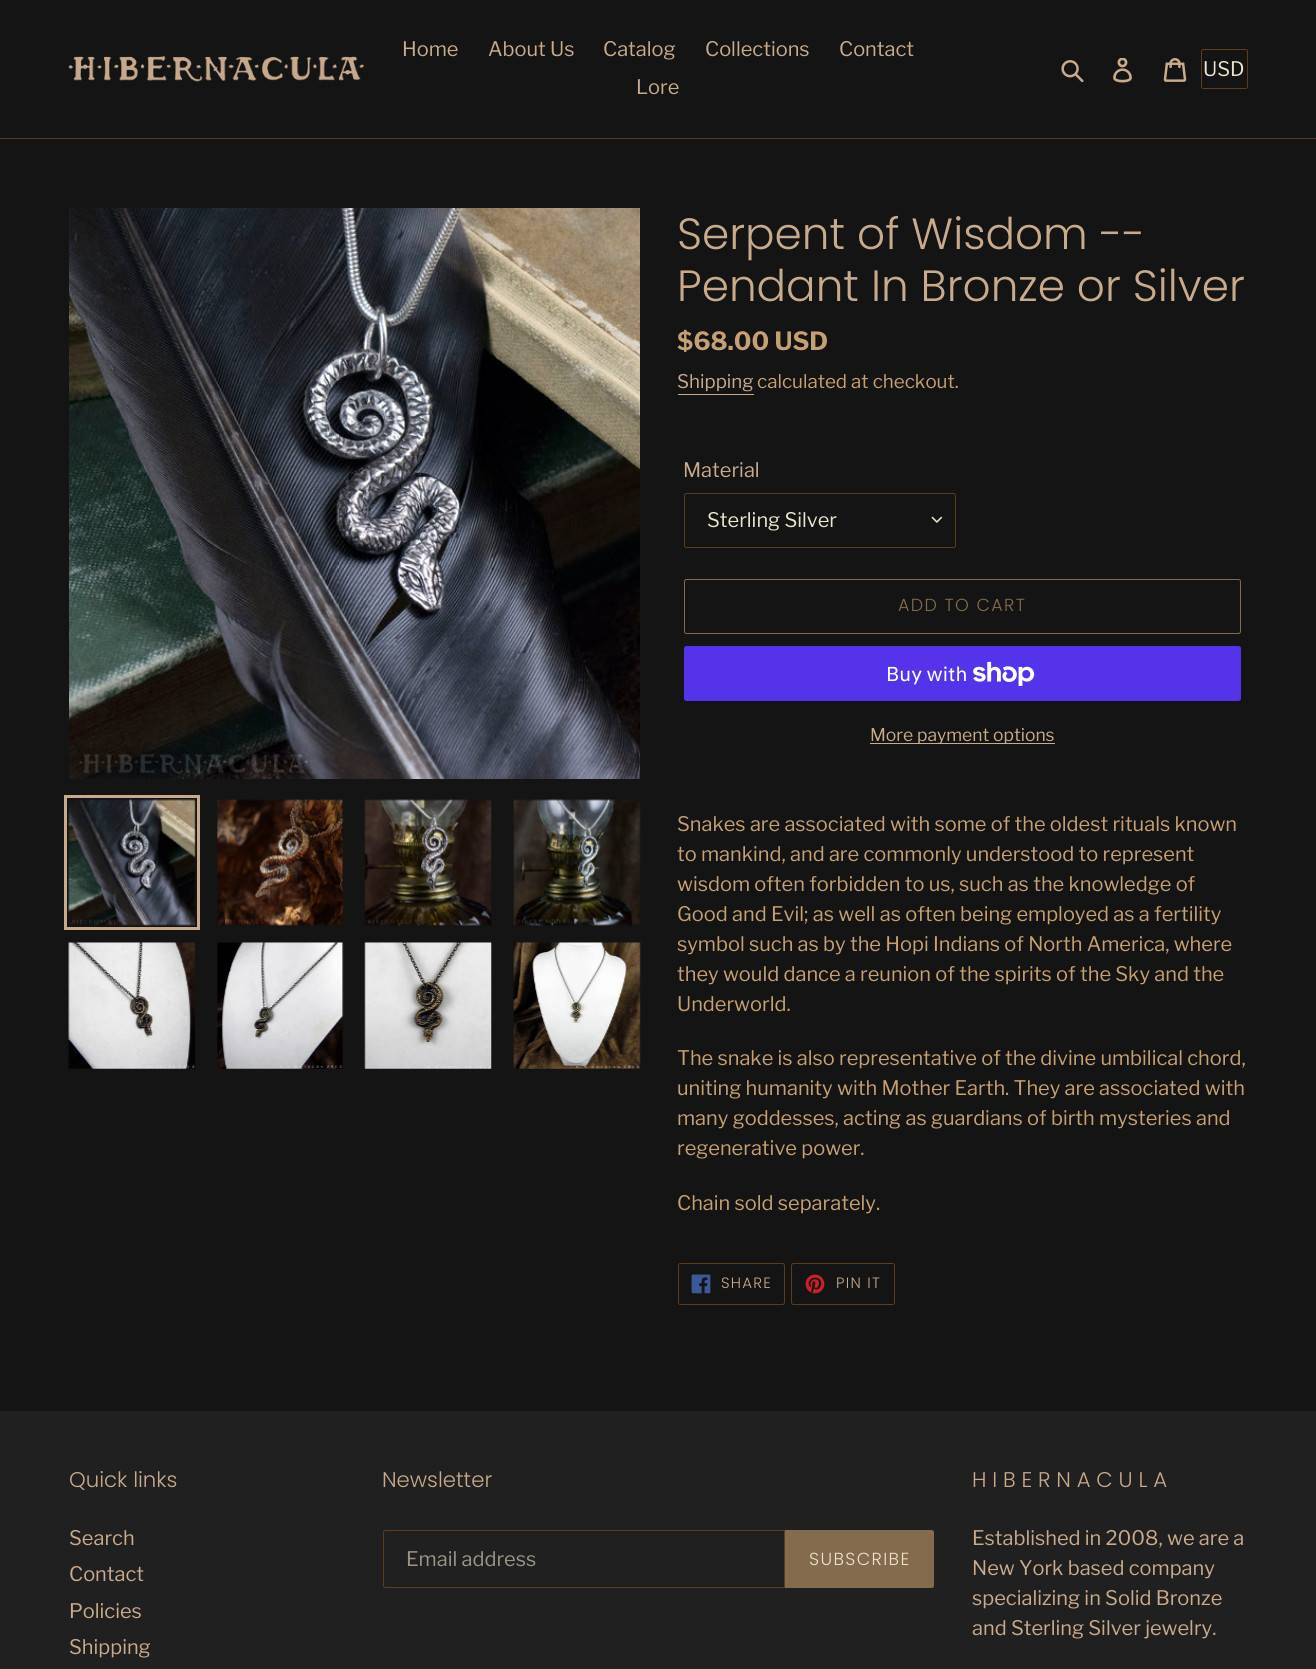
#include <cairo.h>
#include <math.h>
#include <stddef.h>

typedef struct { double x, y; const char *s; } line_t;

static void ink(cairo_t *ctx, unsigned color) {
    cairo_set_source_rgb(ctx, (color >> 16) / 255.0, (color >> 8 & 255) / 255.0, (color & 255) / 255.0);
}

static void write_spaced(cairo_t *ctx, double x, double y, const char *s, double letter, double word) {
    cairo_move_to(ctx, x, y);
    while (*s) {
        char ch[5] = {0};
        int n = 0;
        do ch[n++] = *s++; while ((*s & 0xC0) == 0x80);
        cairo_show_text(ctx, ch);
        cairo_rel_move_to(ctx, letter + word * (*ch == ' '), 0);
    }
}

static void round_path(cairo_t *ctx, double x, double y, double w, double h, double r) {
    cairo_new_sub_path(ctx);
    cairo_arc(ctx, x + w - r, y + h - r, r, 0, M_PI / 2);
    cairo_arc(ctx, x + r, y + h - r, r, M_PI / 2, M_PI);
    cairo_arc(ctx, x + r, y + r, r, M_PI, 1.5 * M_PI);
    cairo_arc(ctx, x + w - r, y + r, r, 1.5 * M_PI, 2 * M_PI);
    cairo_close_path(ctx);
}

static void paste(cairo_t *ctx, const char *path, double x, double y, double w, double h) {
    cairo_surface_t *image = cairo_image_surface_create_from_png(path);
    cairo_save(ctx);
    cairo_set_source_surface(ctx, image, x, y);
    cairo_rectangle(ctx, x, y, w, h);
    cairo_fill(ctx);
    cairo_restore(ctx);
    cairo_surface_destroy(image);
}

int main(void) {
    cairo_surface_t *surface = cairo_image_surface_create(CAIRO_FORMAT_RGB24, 1316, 1669);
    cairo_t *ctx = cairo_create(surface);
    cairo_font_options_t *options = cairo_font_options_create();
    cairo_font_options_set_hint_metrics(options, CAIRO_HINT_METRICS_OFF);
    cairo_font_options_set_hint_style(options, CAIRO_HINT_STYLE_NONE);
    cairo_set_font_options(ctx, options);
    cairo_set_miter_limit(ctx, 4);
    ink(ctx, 0x141414);
    cairo_paint(ctx);
    ink(ctx, 0x5F3A1B);
    cairo_rectangle(ctx, 0, 138, 1316, 1);
    cairo_fill(ctx);
    paste(ctx, "media/1.png", 68, 56, 296, 26);
    cairo_select_font_face(ctx, "Libre Franklin", CAIRO_FONT_SLANT_NORMAL, CAIRO_FONT_WEIGHT_NORMAL);
    cairo_set_font_size(ctx, 20);
    ink(ctx, 0xC8AA8D);
    {
        static const line_t items[] = {
            {402, 56, "Home"},
            {488, 56, "About Us"},
            {603, 56, "Catalog"},
            {705, 56, "Collections"},
            {839, 56, "Contact"},
            {636, 94, "Lore"},
        };
        for (size_t i = 0; i < sizeof items / sizeof *items; i++) {
            cairo_move_to(ctx, items[i].x, items[i].y);
            cairo_show_text(ctx, items[i].s);
        }
    }
    paste(ctx, "media/2.png", 1061, 60, 23, 23);
    paste(ctx, "media/3.png", 1113, 58, 19, 25);
    paste(ctx, "media/4.png", 1163, 58, 24, 24);
    round_path(ctx, 1201.5, 49.5, 46, 39, 2);
    ink(ctx, 0x5F3A1B);
    cairo_set_line_width(ctx, 1);
    cairo_stroke(ctx);
    ink(ctx, 0xEBE3CB);
    cairo_move_to(ctx, 1203, 76);
    cairo_show_text(ctx, "USD");
    paste(ctx, "media/5.png", 69, 208, 571, 571);
    cairo_rectangle(ctx, 65.5, 796.5, 133, 132);
    ink(ctx, 0xC8AA8D);
    cairo_set_line_width(ctx, 3);
    cairo_stroke(ctx);
    paste(ctx, "media/6.png", 68, 799, 128, 127);
    paste(ctx, "media/7.png", 217, 799, 127, 127);
    paste(ctx, "media/8.png", 364, 799, 128, 127);
    paste(ctx, "media/9.png", 513, 799, 128, 127);
    paste(ctx, "media/10.png", 68, 942, 128, 127);
    paste(ctx, "media/11.png", 217, 942, 127, 127);
    paste(ctx, "media/12.png", 364, 942, 128, 127);
    paste(ctx, "media/13.png", 513, 942, 128, 127);
    cairo_select_font_face(ctx, "Poppins Light", CAIRO_FONT_SLANT_NORMAL, CAIRO_FONT_WEIGHT_NORMAL);
    cairo_set_font_size(ctx, 43.75);
    cairo_move_to(ctx, 677, 249);
    cairo_show_text(ctx, "Serpent of Wisdom --");
    cairo_move_to(ctx, 677, 301);
    cairo_show_text(ctx, "Pendant In Bronze or Silver");
    cairo_select_font_face(ctx, "Libre Franklin", CAIRO_FONT_SLANT_NORMAL, CAIRO_FONT_WEIGHT_BOLD);
    cairo_set_font_size(ctx, 25);
    ink(ctx, 0xC5A072);
    cairo_move_to(ctx, 677, 350);
    cairo_show_text(ctx, "$68.00 USD");
    cairo_select_font_face(ctx, "Libre Franklin", CAIRO_FONT_SLANT_NORMAL, CAIRO_FONT_WEIGHT_NORMAL);
    cairo_set_font_size(ctx, 18.75);
    ink(ctx, 0xC8AA8D);
    cairo_move_to(ctx, 677, 388);
    cairo_show_text(ctx, "Shipping");
    cairo_rectangle(ctx, 678, 394, 76, 1);
    cairo_fill(ctx);
    ink(ctx, 0xC5A072);
    cairo_move_to(ctx, 757, 388);
    cairo_show_text(ctx, "calculated at checkout.");
    cairo_set_font_size(ctx, 20);
    ink(ctx, 0xC8AA8D);
    cairo_move_to(ctx, 683, 477);
    cairo_show_text(ctx, "Material");
    paste(ctx, "media/14.png", 931, 516, 12, 7);
    round_path(ctx, 684.5, 493.5, 271, 54, 2);
    ink(ctx, 0x5F3A1B);
    cairo_set_line_width(ctx, 1);
    cairo_stroke(ctx);
    ink(ctx, 0xEBE3CB);
    cairo_move_to(ctx, 707, 527);
    cairo_show_text(ctx, "Sterling Silver");
    round_path(ctx, 684.5, 579.5, 556, 54, 2);
    ink(ctx, 0x846B4D);
    cairo_stroke(ctx);
    cairo_select_font_face(ctx, "Poppins Light", CAIRO_FONT_SLANT_NORMAL, CAIRO_FONT_WEIGHT_NORMAL);
    cairo_set_font_size(ctx, 17.5);
    write_spaced(ctx, 898, 611, "ADD TO CART", 1.4, 0);
    ink(ctx, 0x5433EB);
    round_path(ctx, 684, 646, 557, 55, 2.5);
    cairo_fill(ctx);
    cairo_select_font_face(ctx, "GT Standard", CAIRO_FONT_SLANT_NORMAL, CAIRO_FONT_WEIGHT_NORMAL);
    cairo_set_font_size(ctx, 20);
    ink(ctx, 0xFFFFFF);
    cairo_move_to(ctx, 886, 681);
    cairo_show_text(ctx, "Buy with");
    paste(ctx, "media/15.png", 973, 661, 62, 25);
    ink(ctx, 0xC8AA8D);
    cairo_rectangle(ctx, 870, 743, 185, 1);
    cairo_fill(ctx);
    cairo_select_font_face(ctx, "Libre Franklin", CAIRO_FONT_SLANT_NORMAL, CAIRO_FONT_WEIGHT_NORMAL);
    cairo_set_font_size(ctx, 17.5);
    cairo_move_to(ctx, 870, 741);
    cairo_show_text(ctx, "More payment options");
    cairo_set_font_size(ctx, 20);
    ink(ctx, 0xC5A072);
    {
        static const line_t items[] = {
            {677, 831, "Snakes are associated with some of the oldest rituals known"},
            {677, 861, "to mankind, and are commonly understood to represent"},
            {677, 891, "wisdom often forbidden to us, such as the knowledge of"},
            {677, 921, "Good and Evil; as well as often being employed as a fertility"},
            {677, 951, "symbol such as by the Hopi Indians of North America, where"},
            {677, 981, "they would dance a reunion of the spirits of the Sky and the"},
            {677, 1011, "Underworld."},
            {677, 1065, "The snake is also representative of the divine umbilical chord,"},
            {677, 1095, "uniting humanity with Mother Earth. They are associated with"},
            {677, 1125, "many goddesses, acting as guardians of birth mysteries and"},
            {677, 1155, "regenerative power."},
            {677, 1210, "Chain sold separately."},
        };
        for (size_t i = 0; i < sizeof items / sizeof *items; i++) {
            cairo_move_to(ctx, items[i].x, items[i].y);
            cairo_show_text(ctx, items[i].s);
        }
    }
    round_path(ctx, 678.5, 1263.5, 106, 41, 2);
    ink(ctx, 0x5F3A1B);
    cairo_stroke(ctx);
    paste(ctx, "media/16.png", 691, 1274, 20, 20);
    cairo_select_font_face(ctx, "Poppins Light", CAIRO_FONT_SLANT_NORMAL, CAIRO_FONT_WEIGHT_NORMAL);
    cairo_set_font_size(ctx, 15);
    ink(ctx, 0xC8AA8D);
    write_spaced(ctx, 721, 1288, "SHARE", 1.25, 0);
    round_path(ctx, 791.5, 1263.5, 103, 41, 2);
    ink(ctx, 0x5F3A1B);
    cairo_stroke(ctx);
    paste(ctx, "media/17.png", 805, 1274, 20, 20);
    ink(ctx, 0xC8AA8D);
    write_spaced(ctx, 836, 1288, "PIN IT", 1.25, 0);
    ink(ctx, 0x212020);
    cairo_rectangle(ctx, 0, 1411, 1316, 258);
    cairo_fill(ctx);
    cairo_set_font_size(ctx, 21.25);
    ink(ctx, 0xC8AA8D);
    cairo_move_to(ctx, 69, 1487);
    cairo_show_text(ctx, "Quick links");
    cairo_select_font_face(ctx, "Libre Franklin", CAIRO_FONT_SLANT_NORMAL, CAIRO_FONT_WEIGHT_NORMAL);
    cairo_set_font_size(ctx, 20);
    {
        static const line_t items[] = {
            {69, 1545, "Search"},
            {69, 1581, "Contact"},
            {69, 1618, "Policies"},
            {69, 1654, "Shipping"},
        };
        for (size_t i = 0; i < sizeof items / sizeof *items; i++) {
            cairo_move_to(ctx, items[i].x, items[i].y);
            cairo_show_text(ctx, items[i].s);
        }
    }
    cairo_select_font_face(ctx, "Poppins Light", CAIRO_FONT_SLANT_NORMAL, CAIRO_FONT_WEIGHT_NORMAL);
    cairo_set_font_size(ctx, 21.25);
    cairo_move_to(ctx, 382, 1487);
    cairo_show_text(ctx, "Newsletter");
    cairo_new_path(ctx);
    cairo_move_to(ctx, 385.5, 1530.5);
    cairo_line_to(ctx, 784.5, 1530.5);
    cairo_line_to(ctx, 784.5, 1587.5);
    cairo_line_to(ctx, 385.5, 1587.5);
    cairo_curve_to(ctx, 384.5, 1587.5, 383.5, 1586.5, 383.5, 1585.5);
    cairo_line_to(ctx, 383.5, 1532.5);
    cairo_curve_to(ctx, 383.5, 1531.5, 384.5, 1530.5, 385.5, 1530.5);
    cairo_close_path(ctx);
    ink(ctx, 0x5F3A1B);
    cairo_stroke(ctx);
    cairo_select_font_face(ctx, "Libre Franklin", CAIRO_FONT_SLANT_NORMAL, CAIRO_FONT_WEIGHT_NORMAL);
    cairo_set_font_size(ctx, 20);
    ink(ctx, 0x9A9587);
    cairo_move_to(ctx, 406, 1566);
    cairo_show_text(ctx, "Email address");
    ink(ctx, 0x846B4D);
    cairo_new_path(ctx);
    cairo_move_to(ctx, 785, 1530);
    cairo_line_to(ctx, 931.5, 1530);
    cairo_curve_to(ctx, 933, 1530, 934, 1531, 934, 1532.5);
    cairo_line_to(ctx, 934, 1585.5);
    cairo_curve_to(ctx, 934, 1587, 933, 1588, 931.5, 1588);
    cairo_line_to(ctx, 785, 1588);
    cairo_close_path(ctx);
    cairo_fill(ctx);
    cairo_select_font_face(ctx, "Poppins Light", CAIRO_FONT_SLANT_NORMAL, CAIRO_FONT_WEIGHT_NORMAL);
    cairo_set_font_size(ctx, 17.5);
    ink(ctx, 0xEBE3CB);
    write_spaced(ctx, 809, 1565, "SUBSCRIBE", 1.4, 0);
    cairo_set_font_size(ctx, 21.25);
    ink(ctx, 0xC8AA8D);
    cairo_move_to(ctx, 972, 1487);
    cairo_show_text(ctx, "H I B E R N A C U L A");
    cairo_select_font_face(ctx, "Libre Franklin", CAIRO_FONT_SLANT_NORMAL, CAIRO_FONT_WEIGHT_NORMAL);
    cairo_set_font_size(ctx, 20);
    {
        static const line_t items[] = {
            {972, 1545, "Established in 2008, we are a"},
            {972, 1575, "New York based company"},
            {972, 1605, "specializing in Solid Bronze"},
            {972, 1635, "and Sterling Silver jewelry."},
        };
        for (size_t i = 0; i < sizeof items / sizeof *items; i++) {
            cairo_move_to(ctx, items[i].x, items[i].y);
            cairo_show_text(ctx, items[i].s);
        }
    }
    cairo_surface_write_to_png(surface, "image.png");
    cairo_font_options_destroy(options);
    cairo_destroy(ctx);
    cairo_surface_destroy(surface);
    return 0;
}
